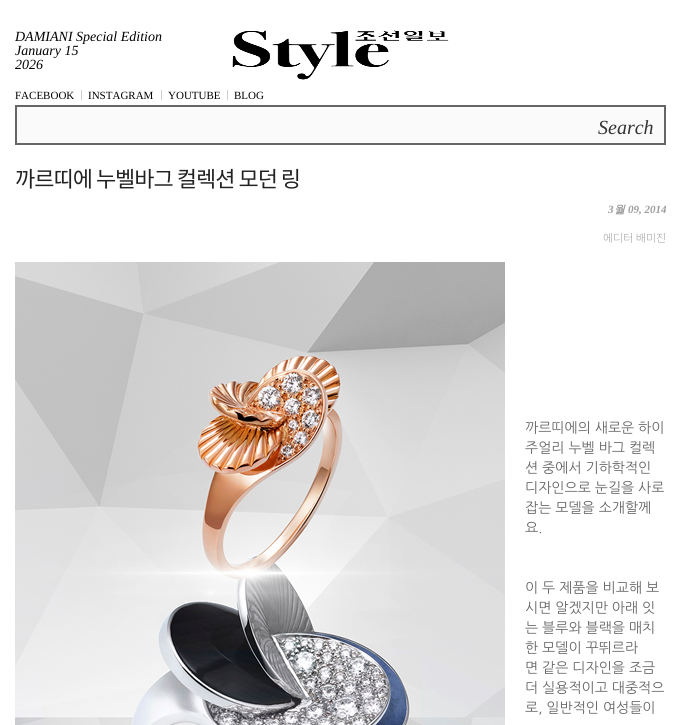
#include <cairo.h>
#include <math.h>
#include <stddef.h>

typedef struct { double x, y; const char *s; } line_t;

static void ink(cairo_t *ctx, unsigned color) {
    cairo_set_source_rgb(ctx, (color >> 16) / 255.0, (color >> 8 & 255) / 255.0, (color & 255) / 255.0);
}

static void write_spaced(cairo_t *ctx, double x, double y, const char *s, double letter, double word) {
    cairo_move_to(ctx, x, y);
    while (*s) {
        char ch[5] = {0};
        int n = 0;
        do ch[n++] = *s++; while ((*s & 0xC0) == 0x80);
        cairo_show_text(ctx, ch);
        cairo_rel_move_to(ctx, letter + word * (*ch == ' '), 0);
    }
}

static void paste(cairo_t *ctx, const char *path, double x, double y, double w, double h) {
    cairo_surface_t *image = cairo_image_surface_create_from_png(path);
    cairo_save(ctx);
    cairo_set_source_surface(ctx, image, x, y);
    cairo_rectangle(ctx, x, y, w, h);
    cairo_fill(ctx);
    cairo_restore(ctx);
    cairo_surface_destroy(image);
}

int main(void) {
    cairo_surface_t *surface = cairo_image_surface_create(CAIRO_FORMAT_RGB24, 681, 725);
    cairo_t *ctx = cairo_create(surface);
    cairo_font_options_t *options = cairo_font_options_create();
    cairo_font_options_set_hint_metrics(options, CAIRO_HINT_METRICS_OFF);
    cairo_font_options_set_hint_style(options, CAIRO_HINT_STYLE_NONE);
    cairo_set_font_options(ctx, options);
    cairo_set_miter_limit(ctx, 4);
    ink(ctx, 0xFFFFFF);
    cairo_paint(ctx);
    cairo_select_font_face(ctx, "Liberation Serif", CAIRO_FONT_SLANT_ITALIC, CAIRO_FONT_WEIGHT_NORMAL);
    cairo_set_font_size(ctx, 14);
    ink(ctx, 0x000000);
    {
        static const line_t items[] = {
            {15, 41, "DAMIANI Special Edition"},
            {15, 55, "January 15"},
            {15, 69, "2026"},
        };
        for (size_t i = 0; i < sizeof items / sizeof *items; i++) {
            cairo_move_to(ctx, items[i].x, items[i].y);
            cairo_show_text(ctx, items[i].s);
        }
    }
    cairo_select_font_face(ctx, "Liberation Serif", CAIRO_FONT_SLANT_NORMAL, CAIRO_FONT_WEIGHT_NORMAL);
    cairo_set_font_size(ctx, 11);
    cairo_move_to(ctx, 15, 99);
    cairo_show_text(ctx, "FACEBOOK");
    paste(ctx, "media/1.png", 81, 90, 1, 11);
    cairo_move_to(ctx, 88, 99);
    cairo_show_text(ctx, "INSTAGRAM");
    paste(ctx, "media/1.png", 161, 90, 1, 11);
    cairo_move_to(ctx, 168, 99);
    cairo_show_text(ctx, "YOUTUBE");
    paste(ctx, "media/1.png", 227, 90, 1, 11);
    cairo_move_to(ctx, 234, 99);
    cairo_show_text(ctx, "BLOG");
    paste(ctx, "media/2.png", 232, 30, 217, 50);
    ink(ctx, 0xFAFAFA);
    cairo_rectangle(ctx, 16, 106, 649, 38);
    cairo_fill_preserve(ctx);
    ink(ctx, 0x666666);
    cairo_stroke(ctx);
    cairo_select_font_face(ctx, "Liberation Serif", CAIRO_FONT_SLANT_ITALIC, CAIRO_FONT_WEIGHT_NORMAL);
    cairo_set_font_size(ctx, 20);
    ink(ctx, 0x333333);
    cairo_move_to(ctx, 598, 134);
    cairo_show_text(ctx, "Search");
    cairo_select_font_face(ctx, "Noto Sans KR", CAIRO_FONT_SLANT_NORMAL, CAIRO_FONT_WEIGHT_NORMAL);
    cairo_set_font_size(ctx, 22);
    ink(ctx, 0x222222);
    write_spaced(ctx, 15, 187, "까르띠에 누벨바그 컬렉션 모던 링", -1, 0);
    cairo_select_font_face(ctx, "Liberation Serif", CAIRO_FONT_SLANT_ITALIC, CAIRO_FONT_WEIGHT_BOLD);
    cairo_set_font_size(ctx, 11);
    ink(ctx, 0x9C9C9C);
    cairo_move_to(ctx, 608, 213);
    cairo_show_text(ctx, "3");
    cairo_select_font_face(ctx, "WenQuanYi Zen Hei", CAIRO_FONT_SLANT_ITALIC, CAIRO_FONT_WEIGHT_BOLD);
    cairo_move_to(ctx, 614, 213);
    cairo_show_text(ctx, "월");
    cairo_select_font_face(ctx, "Liberation Serif", CAIRO_FONT_SLANT_ITALIC, CAIRO_FONT_WEIGHT_BOLD);
    cairo_move_to(ctx, 628, 213);
    cairo_show_text(ctx, "09, 2014");
    cairo_select_font_face(ctx, "Noto Sans KR Light", CAIRO_FONT_SLANT_NORMAL, CAIRO_FONT_WEIGHT_NORMAL);
    cairo_move_to(ctx, 603, 242);
    cairo_show_text(ctx, "에디터 배미진");
    paste(ctx, "media/3.png", 15, 262, 490, 463);
    cairo_select_font_face(ctx, "NanumGothic", CAIRO_FONT_SLANT_NORMAL, CAIRO_FONT_WEIGHT_NORMAL);
    cairo_set_font_size(ctx, 14);
    ink(ctx, 0x666666);
    {
        static const line_t items[] = {
            {525, 432, "까르띠에의 새로운 하이"},
            {525, 452, "주얼리 누벨 바그 컬렉"},
            {525, 472, "션 중에서 기하학적인"},
            {525, 492, "디자인으로 눈길을 사로"},
            {525, 512, "잡는 모델을 소개할께"},
            {525, 532, "요."},
            {525, 592, "이 두 제품을 비교해 보"},
            {525, 612, "시면 알겠지만 아래 잇"},
            {525, 632, "는 블루와 블랙을 매치"},
            {525, 652, "한 모델이 꾸뛰르라"},
            {525, 672, "면 같은 디자인을 조금"},
            {525, 692, "더 실용적이고 대중적으"},
            {525, 712, "로, 일반적인 여성들이"},
        };
        for (size_t i = 0; i < sizeof items / sizeof *items; i++) {
            cairo_move_to(ctx, items[i].x, items[i].y);
            cairo_show_text(ctx, items[i].s);
        }
    }
    cairo_surface_write_to_png(surface, "image.png");
    cairo_font_options_destroy(options);
    cairo_destroy(ctx);
    cairo_surface_destroy(surface);
    return 0;
}
